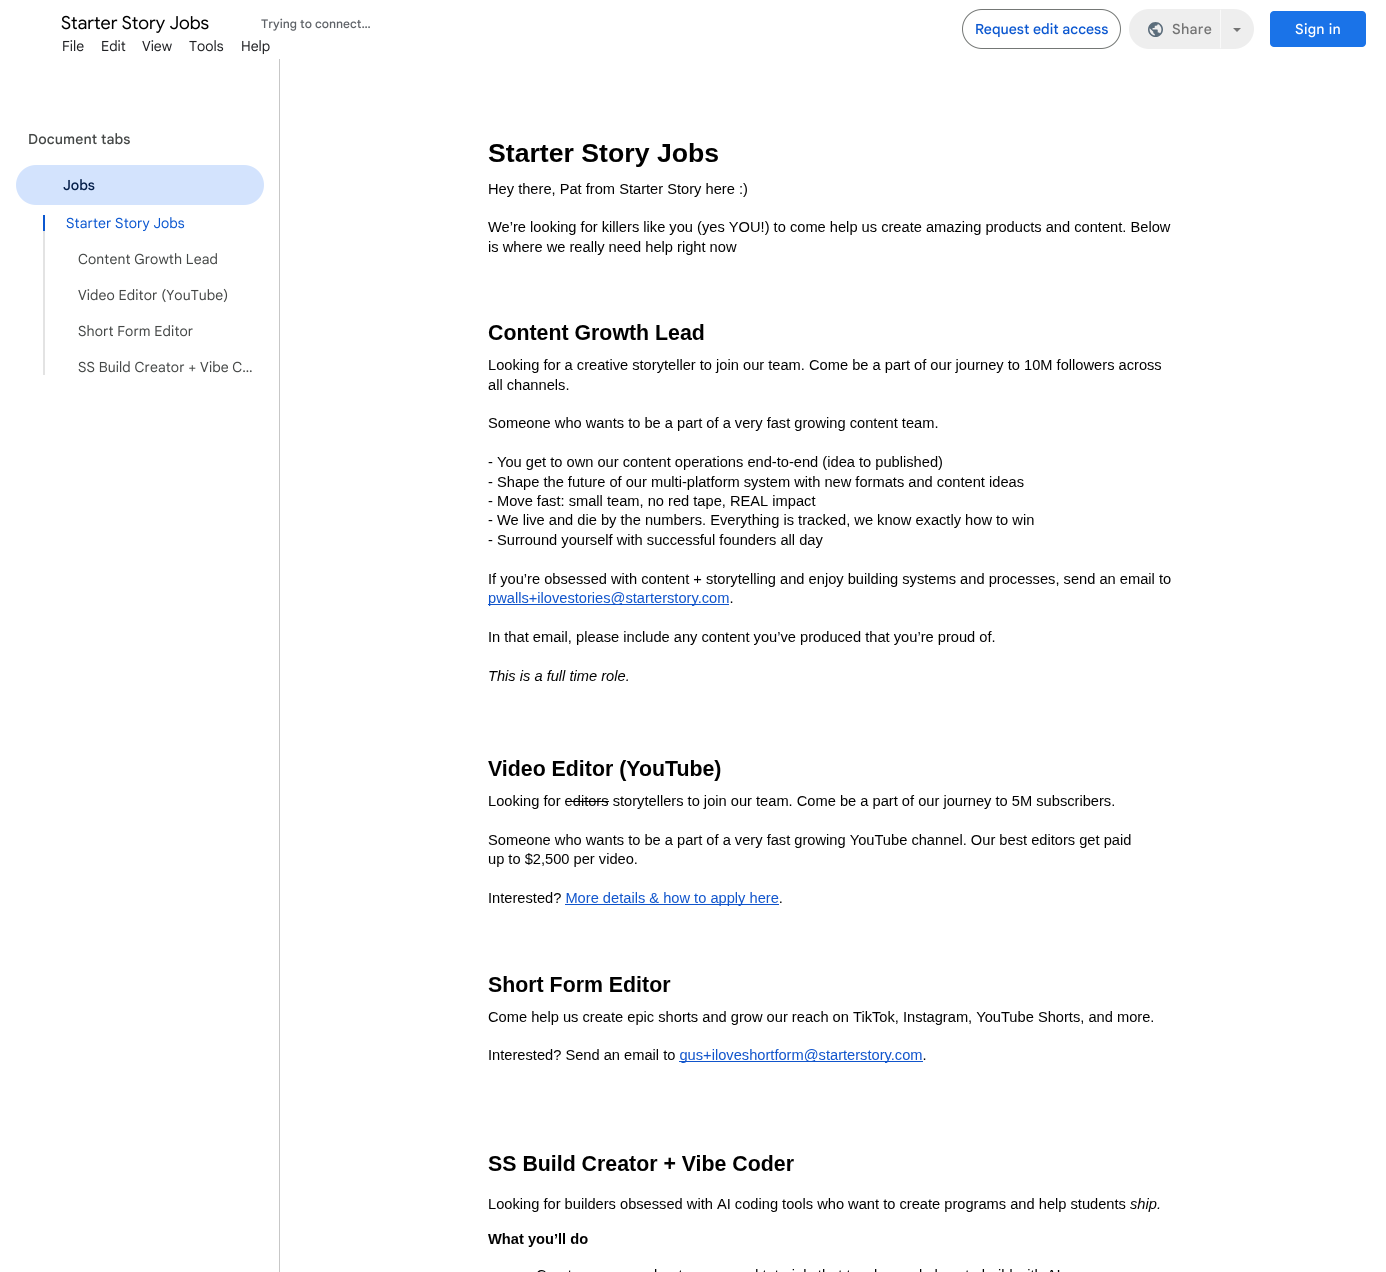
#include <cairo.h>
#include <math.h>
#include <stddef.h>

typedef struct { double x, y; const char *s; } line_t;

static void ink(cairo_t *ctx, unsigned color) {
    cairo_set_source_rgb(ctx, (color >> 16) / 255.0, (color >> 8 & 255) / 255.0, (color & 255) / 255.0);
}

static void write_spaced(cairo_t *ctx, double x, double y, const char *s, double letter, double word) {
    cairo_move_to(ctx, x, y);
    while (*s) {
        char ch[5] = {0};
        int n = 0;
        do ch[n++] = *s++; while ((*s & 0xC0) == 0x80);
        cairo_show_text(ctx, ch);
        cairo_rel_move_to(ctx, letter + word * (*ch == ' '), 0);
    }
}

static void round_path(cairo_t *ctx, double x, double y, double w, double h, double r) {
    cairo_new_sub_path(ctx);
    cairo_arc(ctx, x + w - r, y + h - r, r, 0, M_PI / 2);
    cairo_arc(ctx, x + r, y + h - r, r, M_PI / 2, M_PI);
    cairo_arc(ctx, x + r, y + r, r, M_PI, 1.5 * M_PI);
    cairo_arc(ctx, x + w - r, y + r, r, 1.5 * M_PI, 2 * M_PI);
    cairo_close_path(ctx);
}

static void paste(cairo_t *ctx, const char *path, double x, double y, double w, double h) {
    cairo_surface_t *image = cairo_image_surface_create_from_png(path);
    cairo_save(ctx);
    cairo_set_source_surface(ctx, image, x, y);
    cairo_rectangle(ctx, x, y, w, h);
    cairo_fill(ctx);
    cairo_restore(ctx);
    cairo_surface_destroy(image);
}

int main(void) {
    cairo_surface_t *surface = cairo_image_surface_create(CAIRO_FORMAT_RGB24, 1386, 1272);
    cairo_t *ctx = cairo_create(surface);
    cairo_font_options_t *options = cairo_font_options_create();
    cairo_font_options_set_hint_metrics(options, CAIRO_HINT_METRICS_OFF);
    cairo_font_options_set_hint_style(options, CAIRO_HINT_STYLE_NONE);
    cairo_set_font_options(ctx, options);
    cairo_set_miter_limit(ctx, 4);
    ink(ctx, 0xFFFFFF);
    cairo_paint(ctx);
    cairo_select_font_face(ctx, "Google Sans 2", CAIRO_FONT_SLANT_NORMAL, CAIRO_FONT_WEIGHT_NORMAL);
    cairo_set_font_size(ctx, 18);
    ink(ctx, 0x000000);
    cairo_move_to(ctx, 61, 29);
    cairo_show_text(ctx, "Starter Story Jobs");
    cairo_select_font_face(ctx, "Google Sans Medium", CAIRO_FONT_SLANT_NORMAL, CAIRO_FONT_WEIGHT_NORMAL);
    cairo_set_font_size(ctx, 12);
    ink(ctx, 0x5F6368);
    cairo_move_to(ctx, 261, 28);
    cairo_show_text(ctx, "Trying to connect…");
    round_path(ctx, 962.5, 9.5, 158, 39, 19.5);
    ink(ctx, 0x747775);
    cairo_set_line_width(ctx, 1);
    cairo_stroke(ctx);
    cairo_set_font_size(ctx, 14);
    ink(ctx, 0x0B57D0);
    cairo_move_to(ctx, 975, 34);
    cairo_show_text(ctx, "Request edit access");
    ink(ctx, 0xEEEEEE);
    cairo_new_path(ctx);
    cairo_move_to(ctx, 1149, 9);
    cairo_line_to(ctx, 1221, 9);
    cairo_line_to(ctx, 1221, 49);
    cairo_line_to(ctx, 1149, 49);
    cairo_curve_to(ctx, 1138, 49, 1129, 40, 1129, 29);
    cairo_curve_to(ctx, 1129, 18, 1138, 9, 1149, 9);
    cairo_close_path(ctx);
    cairo_fill(ctx);
    paste(ctx, "media/1.png", 1148, 22, 15, 15);
    ink(ctx, 0x747474);
    write_spaced(ctx, 1172, 34, "Share", 0.25, 0);
    cairo_set_source_rgba(ctx, 0.894, 0.894, 0.894, 0.62);
    cairo_new_path(ctx);
    cairo_move_to(ctx, 1220, 9);
    cairo_line_to(ctx, 1234, 9);
    cairo_curve_to(ctx, 1245, 9, 1254, 18, 1254, 29);
    cairo_curve_to(ctx, 1254, 40, 1245, 49, 1234, 49);
    cairo_line_to(ctx, 1220, 49);
    cairo_close_path(ctx);
    cairo_fill(ctx);
    ink(ctx, 0xF9F9F9);
    cairo_new_path(ctx);
    cairo_move_to(ctx, 1221, 10);
    cairo_line_to(ctx, 1220, 9);
    cairo_line_to(ctx, 1220, 49);
    cairo_line_to(ctx, 1221, 48);
    cairo_close_path(ctx);
    cairo_fill(ctx);
    ink(ctx, 0x747474);
    cairo_new_path(ctx);
    cairo_move_to(ctx, 1233, 28);
    cairo_line_to(ctx, 1241, 28);
    cairo_line_to(ctx, 1237, 32);
    cairo_close_path(ctx);
    cairo_fill(ctx);
    ink(ctx, 0x1A73E8);
    round_path(ctx, 1270, 11, 96, 36, 4);
    cairo_fill(ctx);
    ink(ctx, 0xFFFFFF);
    write_spaced(ctx, 1295, 34, "Sign in", 0.25, 0);
    cairo_select_font_face(ctx, "Google Sans", CAIRO_FONT_SLANT_NORMAL, CAIRO_FONT_WEIGHT_NORMAL);
    ink(ctx, 0x202124);
    {
        static const line_t items[] = {
            {62, 51, "File"},
            {101, 51, "Edit"},
            {142, 51, "View"},
            {189, 51, "Tools"},
            {241, 51, "Help"},
        };
        for (size_t i = 0; i < sizeof items / sizeof *items; i++) {
            cairo_move_to(ctx, items[i].x, items[i].y);
            cairo_show_text(ctx, items[i].s);
        }
    }
    ink(ctx, 0xC7C7C7);
    cairo_rectangle(ctx, 279, 59, 1, 1213);
    cairo_fill(ctx);
    cairo_select_font_face(ctx, "Google Sans Medium", CAIRO_FONT_SLANT_NORMAL, CAIRO_FONT_WEIGHT_NORMAL);
    ink(ctx, 0x444746);
    write_spaced(ctx, 28, 144, "Document tabs", 0.1, 0);
    ink(ctx, 0xD3E3FD);
    round_path(ctx, 16, 165, 248, 40, 20);
    cairo_fill(ctx);
    ink(ctx, 0x041E49);
    cairo_move_to(ctx, 63, 190);
    cairo_show_text(ctx, "Jobs");
    ink(ctx, 0x0B57D0);
    cairo_rectangle(ctx, 43, 215, 2, 16);
    cairo_fill(ctx);
    ink(ctx, 0xE3E3E3);
    cairo_rectangle(ctx, 43, 231, 2, 144);
    cairo_fill(ctx);
    cairo_select_font_face(ctx, "Google Sans", CAIRO_FONT_SLANT_NORMAL, CAIRO_FONT_WEIGHT_NORMAL);
    ink(ctx, 0x0B57D0);
    write_spaced(ctx, 66, 228, "Starter Story Jobs", 0.1, 0);
    ink(ctx, 0x444746);
    {
        static const line_t items[] = {
            {78, 264, "Content Growth Lead"},
            {78, 300, "Video Editor (YouTube)"},
            {78, 336, "Short Form Editor"},
            {78, 372, "SS Build Creator + Vibe C…"},
        };
        for (size_t i = 0; i < sizeof items / sizeof *items; i++) {
            write_spaced(ctx, items[i].x, items[i].y, items[i].s, 0.1, 0);
        }
    }
    paste(ctx, "media/2.png", 488, 143, 683, 534);
    paste(ctx, "media/3.png", 488, 677, 672, 595);
    cairo_surface_write_to_png(surface, "image.png");
    cairo_font_options_destroy(options);
    cairo_destroy(ctx);
    cairo_surface_destroy(surface);
    return 0;
}
